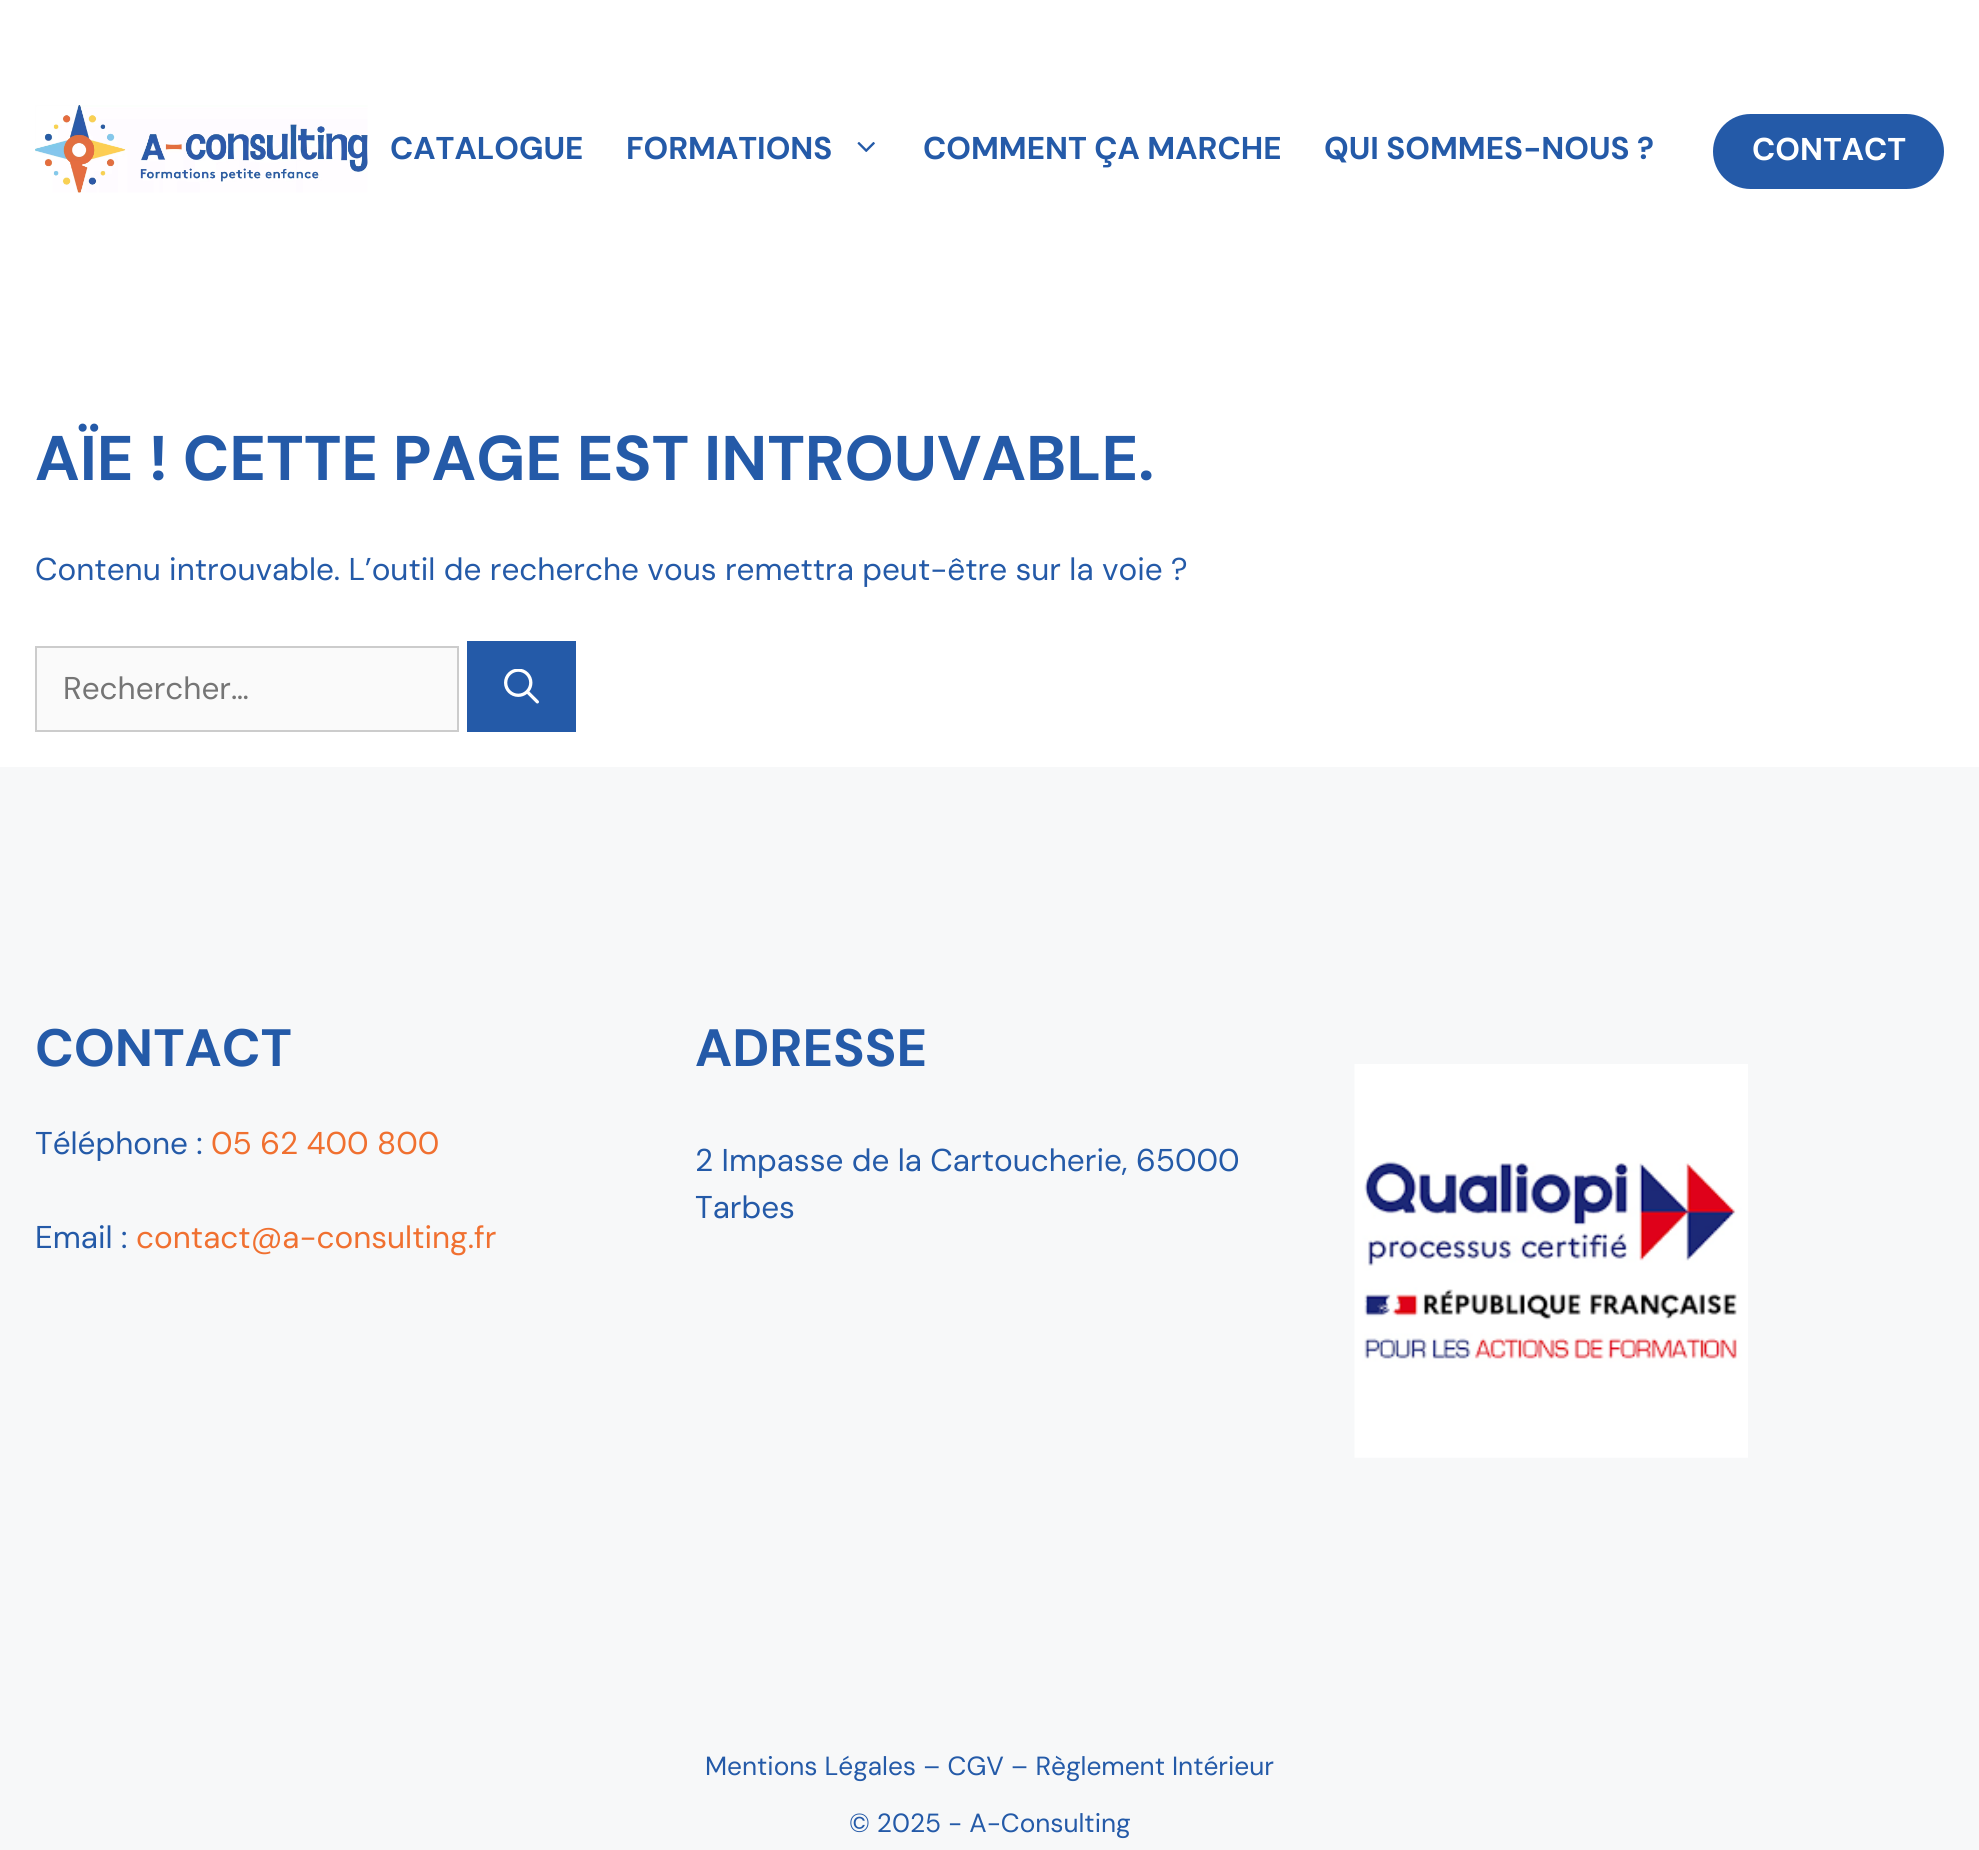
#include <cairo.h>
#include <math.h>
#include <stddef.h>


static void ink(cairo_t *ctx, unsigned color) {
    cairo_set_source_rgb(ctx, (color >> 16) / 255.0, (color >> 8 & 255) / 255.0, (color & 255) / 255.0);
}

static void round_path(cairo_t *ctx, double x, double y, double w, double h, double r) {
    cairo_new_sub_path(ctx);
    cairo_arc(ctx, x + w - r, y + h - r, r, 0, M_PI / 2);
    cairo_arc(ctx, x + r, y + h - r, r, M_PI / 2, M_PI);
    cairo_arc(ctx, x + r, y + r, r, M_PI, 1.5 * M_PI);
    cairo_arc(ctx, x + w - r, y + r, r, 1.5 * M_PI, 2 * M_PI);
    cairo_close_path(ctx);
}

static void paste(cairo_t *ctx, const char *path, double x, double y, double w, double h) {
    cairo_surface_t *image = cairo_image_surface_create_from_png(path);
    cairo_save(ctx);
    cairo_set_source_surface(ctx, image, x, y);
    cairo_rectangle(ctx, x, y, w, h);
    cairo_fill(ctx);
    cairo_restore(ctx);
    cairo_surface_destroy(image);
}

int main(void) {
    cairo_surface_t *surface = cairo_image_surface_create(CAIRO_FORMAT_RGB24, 1979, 1850);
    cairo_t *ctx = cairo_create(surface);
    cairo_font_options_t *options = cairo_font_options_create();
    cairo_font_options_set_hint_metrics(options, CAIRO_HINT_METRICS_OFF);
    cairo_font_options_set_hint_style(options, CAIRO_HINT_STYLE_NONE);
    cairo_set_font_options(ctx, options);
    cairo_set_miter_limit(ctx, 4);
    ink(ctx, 0xFFFFFF);
    cairo_paint(ctx);
    paste(ctx, "media/1.png", 35, 105, 333, 88);
    cairo_select_font_face(ctx, "DM Sans", CAIRO_FONT_SLANT_NORMAL, CAIRO_FONT_WEIGHT_BOLD);
    cairo_set_font_size(ctx, 31.5);
    ink(ctx, 0x245AA8);
    cairo_move_to(ctx, 390, 159);
    cairo_show_text(ctx, "CATALOGUE");
    cairo_move_to(ctx, 626, 159);
    cairo_show_text(ctx, "FORMATIONS");
    paste(ctx, "media/2.png", 857, 142, 18, 10);
    cairo_move_to(ctx, 923, 159);
    cairo_show_text(ctx, "COMMENT ÇA MARCHE");
    cairo_move_to(ctx, 1324, 159);
    cairo_show_text(ctx, "QUI SOMMES-NOUS ?");
    round_path(ctx, 1713, 114, 231, 75, 37.5);
    cairo_fill(ctx);
    ink(ctx, 0xFFFFFF);
    cairo_move_to(ctx, 1752, 160);
    cairo_show_text(ctx, "CONTACT");
    cairo_set_font_size(ctx, 63);
    ink(ctx, 0x245AA8);
    cairo_move_to(ctx, 35, 480);
    cairo_show_text(ctx, "AÏE ! CETTE PAGE EST INTROUVABLE.");
    cairo_select_font_face(ctx, "DM Sans", CAIRO_FONT_SLANT_NORMAL, CAIRO_FONT_WEIGHT_NORMAL);
    cairo_set_font_size(ctx, 31.5);
    cairo_move_to(ctx, 35, 580);
    cairo_show_text(ctx, "Contenu introuvable. L’outil de recherche vous remettra peut-être sur la voie ?");
    ink(ctx, 0xFAFAFA);
    cairo_rectangle(ctx, 36, 647, 422, 84);
    cairo_fill_preserve(ctx);
    ink(ctx, 0xCCCCCC);
    cairo_stroke(ctx);
    ink(ctx, 0x757575);
    cairo_move_to(ctx, 63, 699);
    cairo_show_text(ctx, "Rechercher…");
    ink(ctx, 0x245AA8);
    cairo_rectangle(ctx, 467, 641, 109, 91);
    cairo_fill(ctx);
    paste(ctx, "media/3.png", 504, 669, 35, 35);
    ink(ctx, 0xF7F8F9);
    cairo_rectangle(ctx, 0, 767, 1979, 1083);
    cairo_fill(ctx);
    cairo_select_font_face(ctx, "DM Sans", CAIRO_FONT_SLANT_NORMAL, CAIRO_FONT_WEIGHT_BOLD);
    cairo_set_font_size(ctx, 52.5);
    ink(ctx, 0x245AA8);
    cairo_move_to(ctx, 35, 1066);
    cairo_show_text(ctx, "CONTACT");
    cairo_select_font_face(ctx, "DM Sans", CAIRO_FONT_SLANT_NORMAL, CAIRO_FONT_WEIGHT_NORMAL);
    cairo_set_font_size(ctx, 31.5);
    cairo_move_to(ctx, 35, 1154);
    cairo_show_text(ctx, "Téléphone :");
    ink(ctx, 0xF07030);
    cairo_move_to(ctx, 211, 1154);
    cairo_show_text(ctx, "05 62 400 800");
    ink(ctx, 0x245AA8);
    cairo_move_to(ctx, 35, 1248);
    cairo_show_text(ctx, "Email :");
    ink(ctx, 0xF07030);
    cairo_move_to(ctx, 136, 1248);
    cairo_show_text(ctx, "contact@a-consulting.fr");
    cairo_select_font_face(ctx, "DM Sans", CAIRO_FONT_SLANT_NORMAL, CAIRO_FONT_WEIGHT_BOLD);
    cairo_set_font_size(ctx, 52.5);
    ink(ctx, 0x245AA8);
    cairo_move_to(ctx, 695, 1066);
    cairo_show_text(ctx, "ADRESSE");
    cairo_select_font_face(ctx, "DM Sans", CAIRO_FONT_SLANT_NORMAL, CAIRO_FONT_WEIGHT_NORMAL);
    cairo_set_font_size(ctx, 31.5);
    cairo_move_to(ctx, 695, 1171);
    cairo_show_text(ctx, "2 Impasse de la Cartoucherie, 65000");
    cairo_move_to(ctx, 695, 1218);
    cairo_show_text(ctx, "Tarbes");
    paste(ctx, "media/4.png", 1354, 1064, 394, 394);
    cairo_set_font_size(ctx, 26.25);
    cairo_move_to(ctx, 705, 1775);
    cairo_show_text(ctx, "Mentions Légales – CGV – Règlement Intérieur");
    cairo_move_to(ctx, 849, 1832);
    cairo_show_text(ctx, "© 2025 - A-Consulting");
    cairo_surface_write_to_png(surface, "image.png");
    cairo_font_options_destroy(options);
    cairo_destroy(ctx);
    cairo_surface_destroy(surface);
    return 0;
}
